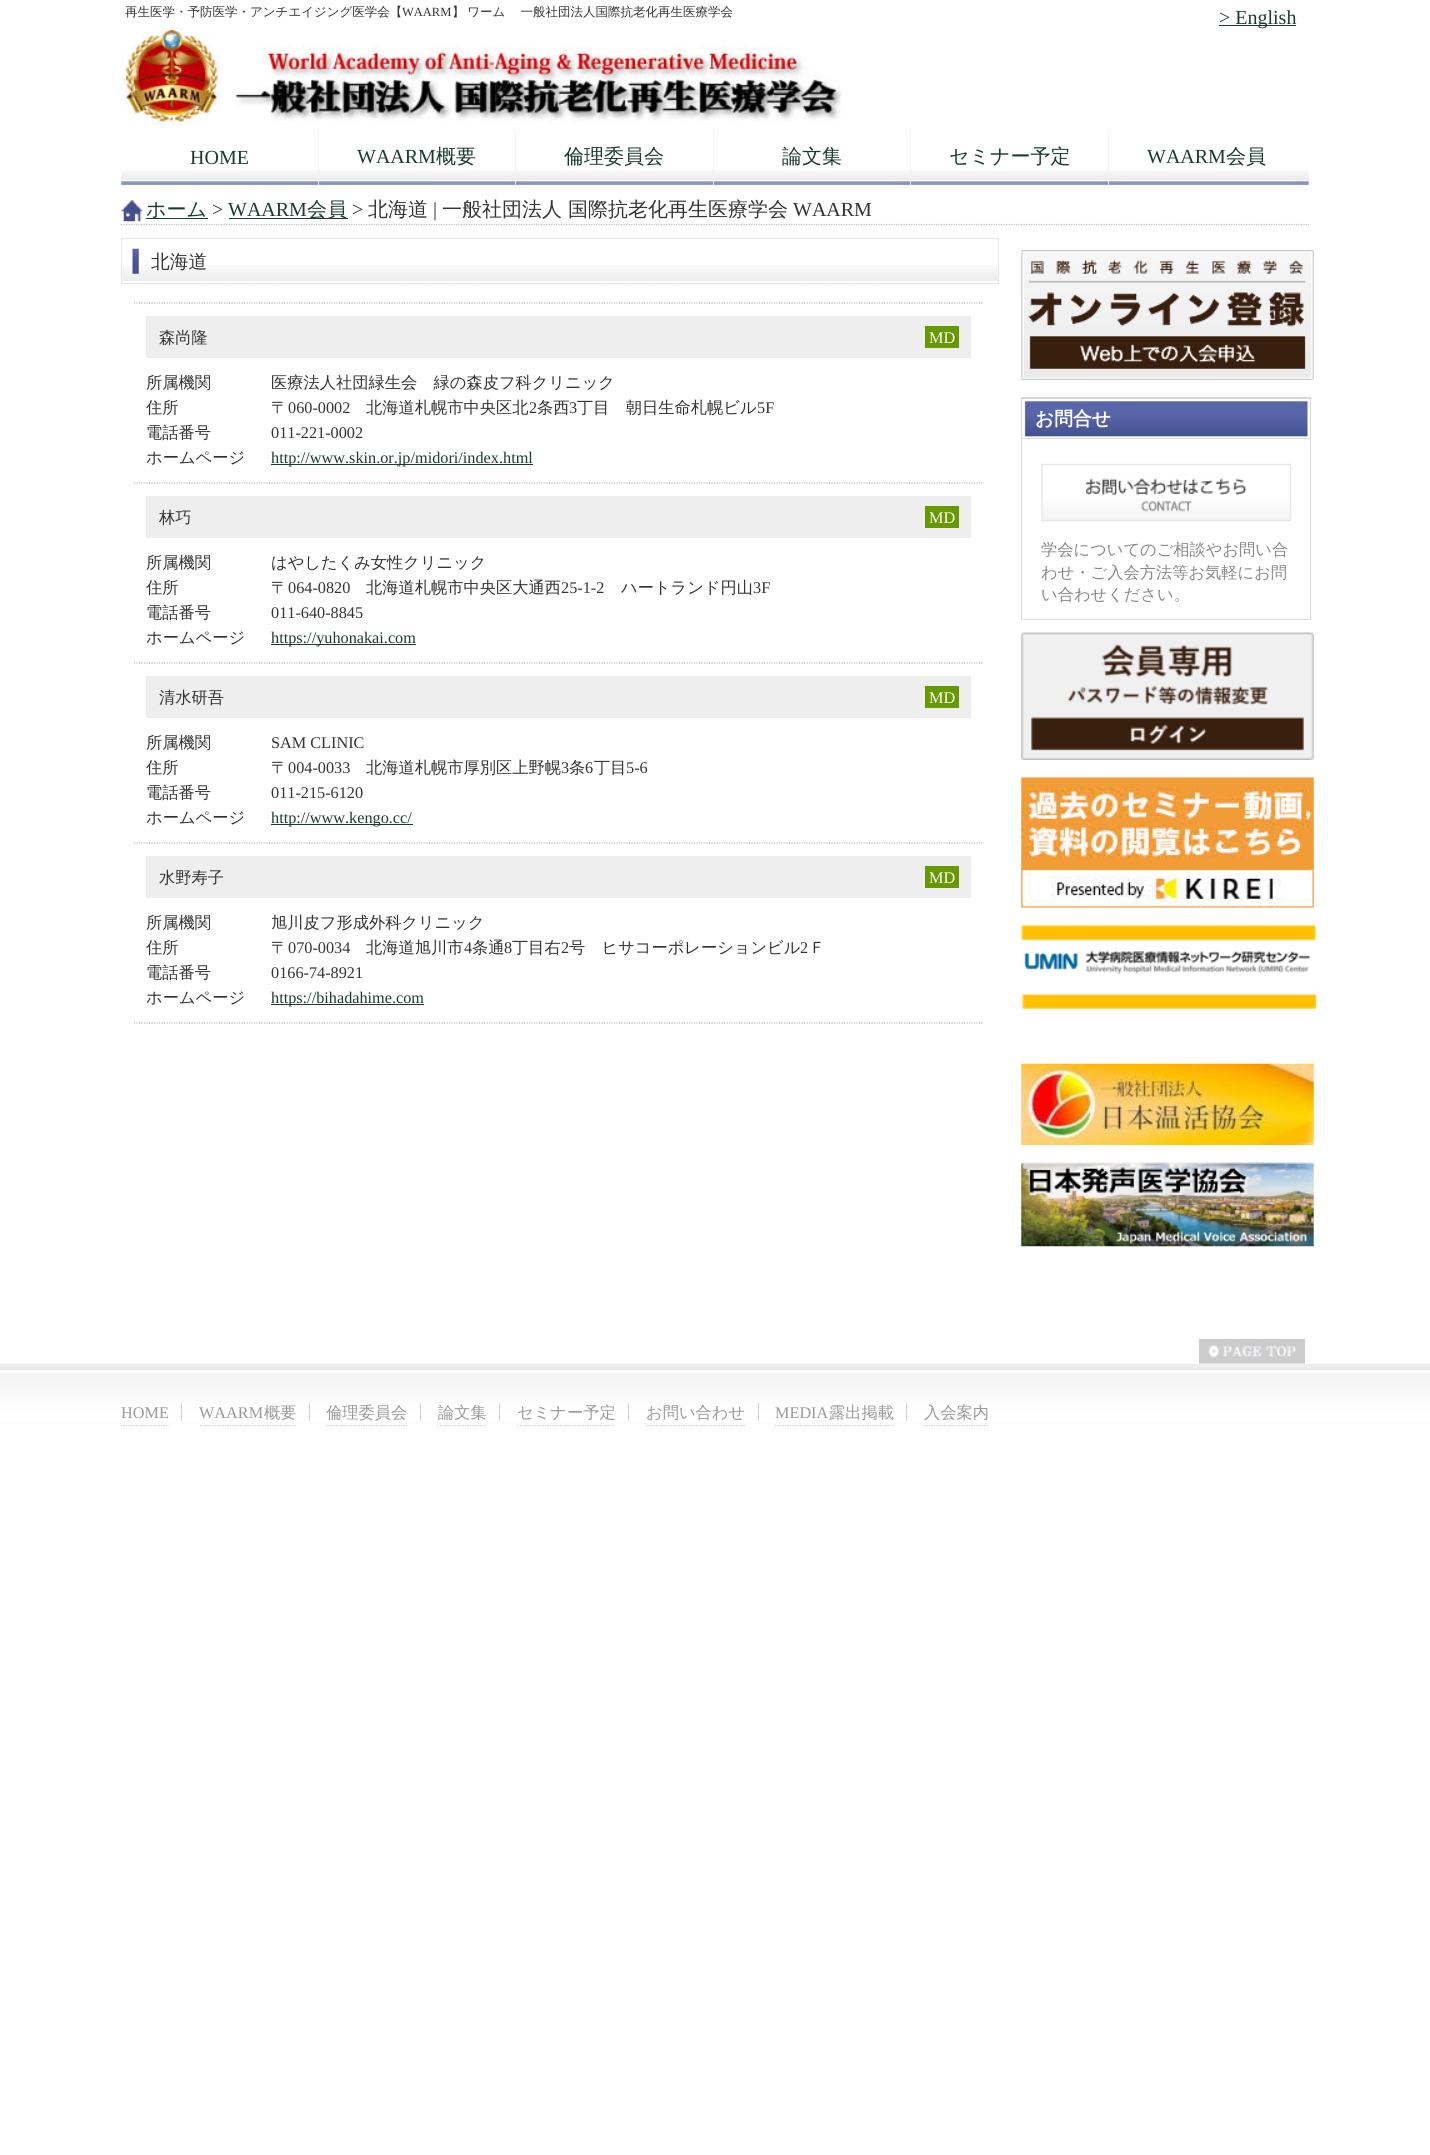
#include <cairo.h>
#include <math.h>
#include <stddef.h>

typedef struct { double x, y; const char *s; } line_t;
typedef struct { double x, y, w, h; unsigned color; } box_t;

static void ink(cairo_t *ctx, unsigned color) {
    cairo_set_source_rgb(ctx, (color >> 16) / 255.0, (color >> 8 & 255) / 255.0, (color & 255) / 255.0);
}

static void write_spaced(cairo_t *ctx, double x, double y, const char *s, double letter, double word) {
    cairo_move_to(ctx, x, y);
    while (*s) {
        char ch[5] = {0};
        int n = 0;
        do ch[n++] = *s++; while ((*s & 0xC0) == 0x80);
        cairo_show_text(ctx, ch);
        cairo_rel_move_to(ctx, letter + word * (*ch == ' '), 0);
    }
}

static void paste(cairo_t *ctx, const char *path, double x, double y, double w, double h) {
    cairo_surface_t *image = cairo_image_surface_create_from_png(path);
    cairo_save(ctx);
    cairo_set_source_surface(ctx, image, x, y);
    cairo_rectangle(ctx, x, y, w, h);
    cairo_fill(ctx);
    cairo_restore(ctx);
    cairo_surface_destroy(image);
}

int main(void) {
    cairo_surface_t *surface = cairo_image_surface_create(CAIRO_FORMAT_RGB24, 1430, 2155);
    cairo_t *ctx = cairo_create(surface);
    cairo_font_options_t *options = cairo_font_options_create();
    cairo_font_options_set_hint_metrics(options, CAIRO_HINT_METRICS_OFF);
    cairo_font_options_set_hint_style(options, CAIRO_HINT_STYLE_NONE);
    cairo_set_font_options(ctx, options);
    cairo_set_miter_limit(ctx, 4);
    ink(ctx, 0xFFFFFF);
    cairo_paint(ctx);
    cairo_select_font_face(ctx, "WenQuanYi Zen Hei Medium", CAIRO_FONT_SLANT_NORMAL, CAIRO_FONT_WEIGHT_NORMAL);
    cairo_set_font_size(ctx, 12.5);
    ink(ctx, 0x333333);
    cairo_move_to(ctx, 125, 16);
    cairo_show_text(ctx, "再生医学・予防医学・アンチエイジング医学会【");
    cairo_select_font_face(ctx, "Liberation Serif", CAIRO_FONT_SLANT_NORMAL, CAIRO_FONT_WEIGHT_NORMAL);
    cairo_move_to(ctx, 402, 16);
    cairo_show_text(ctx, "WAARM");
    cairo_select_font_face(ctx, "WenQuanYi Zen Hei Medium", CAIRO_FONT_SLANT_NORMAL, CAIRO_FONT_WEIGHT_NORMAL);
    write_spaced(ctx, 452, 16, "】 ワーム　 一般社団法人国際抗老化再生医療学会", 0, -1);
    paste(ctx, "media/1.png", 121, 25, 721, 100);
    ink(ctx, 0x1D3B2F);
    cairo_rectangle(ctx, 1219, 25, 77, 1);
    cairo_fill(ctx);
    cairo_select_font_face(ctx, "Liberation Serif", CAIRO_FONT_SLANT_NORMAL, CAIRO_FONT_WEIGHT_NORMAL);
    cairo_set_font_size(ctx, 20);
    cairo_move_to(ctx, 1219, 24);
    cairo_show_text(ctx, "> English");
    paste(ctx, "media/2.png", 121, 170, 1188, 15);
    ink(ctx, 0xF3F3F3);
    cairo_rectangle(ctx, 318, 130, 1, 55);
    cairo_fill(ctx);
    ink(ctx, 0x1D3B2F);
    cairo_move_to(ctx, 190, 164);
    cairo_show_text(ctx, "HOME");
    ink(ctx, 0xF3F3F3);
    cairo_rectangle(ctx, 515, 130, 1, 55);
    cairo_fill(ctx);
    ink(ctx, 0x1D3B2F);
    cairo_move_to(ctx, 357, 163);
    cairo_show_text(ctx, "WAARM");
    cairo_select_font_face(ctx, "WenQuanYi Zen Hei Medium", CAIRO_FONT_SLANT_NORMAL, CAIRO_FONT_WEIGHT_NORMAL);
    cairo_move_to(ctx, 436, 163);
    cairo_show_text(ctx, "概要");
    ink(ctx, 0xF3F3F3);
    cairo_rectangle(ctx, 713, 130, 1, 55);
    cairo_fill(ctx);
    ink(ctx, 0x1D3B2F);
    cairo_move_to(ctx, 564, 163);
    cairo_show_text(ctx, "倫理委員会");
    ink(ctx, 0xF3F3F3);
    cairo_rectangle(ctx, 910, 130, 1, 55);
    cairo_fill(ctx);
    ink(ctx, 0x1D3B2F);
    cairo_move_to(ctx, 782, 163);
    cairo_show_text(ctx, "論文集");
    ink(ctx, 0xF3F3F3);
    cairo_rectangle(ctx, 1108, 130, 1, 55);
    cairo_fill(ctx);
    ink(ctx, 0x1D3B2F);
    cairo_move_to(ctx, 949, 163);
    cairo_show_text(ctx, "セミナー予定");
    cairo_select_font_face(ctx, "Liberation Serif", CAIRO_FONT_SLANT_NORMAL, CAIRO_FONT_WEIGHT_NORMAL);
    cairo_move_to(ctx, 1147, 163);
    cairo_show_text(ctx, "WAARM");
    cairo_select_font_face(ctx, "WenQuanYi Zen Hei Medium", CAIRO_FONT_SLANT_NORMAL, CAIRO_FONT_WEIGHT_NORMAL);
    cairo_move_to(ctx, 1226, 163);
    cairo_show_text(ctx, "会員");
    paste(ctx, "media/3.png", 121, 200, 22, 22);
    cairo_new_path(ctx);
    cairo_move_to(ctx, 121, 224.5);
    cairo_line_to(ctx, 1309, 224.5);
    ink(ctx, 0xC0C0C0);
    cairo_set_line_width(ctx, 1.2);
    cairo_set_dash(ctx, (double[]){1.25, 1.25}, 2, 0);
    cairo_stroke(ctx);
    ink(ctx, 0x1D3B2F);
    cairo_rectangle(ctx, 146, 218, 62, 1);
    cairo_fill(ctx);
    cairo_move_to(ctx, 146, 216);
    cairo_show_text(ctx, "ホーム");
    cairo_select_font_face(ctx, "Liberation Serif", CAIRO_FONT_SLANT_NORMAL, CAIRO_FONT_WEIGHT_NORMAL);
    ink(ctx, 0x333333);
    cairo_move_to(ctx, 212, 216);
    cairo_show_text(ctx, ">");
    ink(ctx, 0x1D3B2F);
    cairo_move_to(ctx, 228, 216);
    cairo_show_text(ctx, "WAARM");
    cairo_rectangle(ctx, 229, 218, 119, 1);
    cairo_fill(ctx);
    cairo_select_font_face(ctx, "WenQuanYi Zen Hei Medium", CAIRO_FONT_SLANT_NORMAL, CAIRO_FONT_WEIGHT_NORMAL);
    cairo_move_to(ctx, 307, 216);
    cairo_show_text(ctx, "会員");
    cairo_select_font_face(ctx, "Liberation Serif", CAIRO_FONT_SLANT_NORMAL, CAIRO_FONT_WEIGHT_NORMAL);
    ink(ctx, 0x333333);
    cairo_move_to(ctx, 352, 216);
    cairo_show_text(ctx, ">");
    cairo_select_font_face(ctx, "WenQuanYi Zen Hei Medium", CAIRO_FONT_SLANT_NORMAL, CAIRO_FONT_WEIGHT_NORMAL);
    cairo_move_to(ctx, 368, 216);
    cairo_show_text(ctx, "北海道");
    cairo_select_font_face(ctx, "Liberation Serif", CAIRO_FONT_SLANT_NORMAL, CAIRO_FONT_WEIGHT_NORMAL);
    cairo_move_to(ctx, 433, 216);
    cairo_show_text(ctx, "|");
    cairo_select_font_face(ctx, "WenQuanYi Zen Hei Medium", CAIRO_FONT_SLANT_NORMAL, CAIRO_FONT_WEIGHT_NORMAL);
    cairo_move_to(ctx, 442, 216);
    cairo_show_text(ctx, "一般社団法人 国際抗老化再生医療学会");
    cairo_select_font_face(ctx, "Liberation Serif", CAIRO_FONT_SLANT_NORMAL, CAIRO_FONT_WEIGHT_NORMAL);
    cairo_move_to(ctx, 793, 216);
    cairo_show_text(ctx, "WAARM");
    paste(ctx, "media/4.png", 122, 265, 876, 17);
    cairo_rectangle(ctx, 121.5, 238.5, 877, 45);
    ink(ctx, 0xE5E5E5);
    cairo_set_line_width(ctx, 1);
    cairo_set_dash(ctx, NULL, 0, 0);
    cairo_stroke(ctx);
    paste(ctx, "media/5.png", 132, 248, 7, 26);
    cairo_select_font_face(ctx, "WenQuanYi Zen Hei Medium", CAIRO_FONT_SLANT_NORMAL, CAIRO_FONT_WEIGHT_NORMAL);
    cairo_set_font_size(ctx, 18.75);
    ink(ctx, 0x333333);
    cairo_move_to(ctx, 151, 268);
    cairo_show_text(ctx, "北海道");
    cairo_new_path(ctx);
    cairo_move_to(ctx, 134, 303);
    cairo_line_to(ctx, 984, 303);
    ink(ctx, 0xBBBBBB);
    cairo_set_line_width(ctx, 1.2);
    cairo_set_dash(ctx, (double[]){1.25, 1.25}, 2, 0);
    cairo_stroke(ctx);
    cairo_new_path(ctx);
    cairo_move_to(ctx, 134, 483);
    cairo_line_to(ctx, 984, 483);
    cairo_stroke(ctx);
    ink(ctx, 0xEEEEEE);
    cairo_rectangle(ctx, 146, 316, 825, 42);
    cairo_fill(ctx);
    cairo_set_font_size(ctx, 16.25);
    ink(ctx, 0x333333);
    cairo_move_to(ctx, 159, 343);
    cairo_show_text(ctx, "森尚隆");
    ink(ctx, 0x669900);
    cairo_rectangle(ctx, 925, 326, 34, 22);
    cairo_fill(ctx);
    cairo_select_font_face(ctx, "Liberation Serif", CAIRO_FONT_SLANT_NORMAL, CAIRO_FONT_WEIGHT_NORMAL);
    ink(ctx, 0xFFFFFF);
    cairo_move_to(ctx, 929, 343);
    cairo_show_text(ctx, "MD");
    cairo_select_font_face(ctx, "WenQuanYi Zen Hei Medium", CAIRO_FONT_SLANT_NORMAL, CAIRO_FONT_WEIGHT_NORMAL);
    ink(ctx, 0x333333);
    {
        static const line_t items[] = {
            {146, 388, "所属機関"},
            {271, 388, "医療法人社団緑生会　緑の森皮フ科クリニック"},
            {146, 413, "住所"},
            {271, 413, "〒"},
        };
        for (size_t i = 0; i < sizeof items / sizeof *items; i++) {
            cairo_move_to(ctx, items[i].x, items[i].y);
            cairo_show_text(ctx, items[i].s);
        }
    }
    cairo_select_font_face(ctx, "Liberation Serif", CAIRO_FONT_SLANT_NORMAL, CAIRO_FONT_WEIGHT_NORMAL);
    cairo_move_to(ctx, 288, 413);
    cairo_show_text(ctx, "060-0002");
    cairo_select_font_face(ctx, "WenQuanYi Zen Hei Medium", CAIRO_FONT_SLANT_NORMAL, CAIRO_FONT_WEIGHT_NORMAL);
    cairo_move_to(ctx, 366, 413);
    cairo_show_text(ctx, "北海道札幌市中央区北");
    cairo_select_font_face(ctx, "Liberation Serif", CAIRO_FONT_SLANT_NORMAL, CAIRO_FONT_WEIGHT_NORMAL);
    cairo_move_to(ctx, 529, 413);
    cairo_show_text(ctx, "2");
    cairo_select_font_face(ctx, "WenQuanYi Zen Hei Medium", CAIRO_FONT_SLANT_NORMAL, CAIRO_FONT_WEIGHT_NORMAL);
    cairo_move_to(ctx, 537, 413);
    cairo_show_text(ctx, "条西");
    cairo_select_font_face(ctx, "Liberation Serif", CAIRO_FONT_SLANT_NORMAL, CAIRO_FONT_WEIGHT_NORMAL);
    cairo_move_to(ctx, 569, 413);
    cairo_show_text(ctx, "3");
    cairo_select_font_face(ctx, "WenQuanYi Zen Hei Medium", CAIRO_FONT_SLANT_NORMAL, CAIRO_FONT_WEIGHT_NORMAL);
    cairo_move_to(ctx, 577, 413);
    cairo_show_text(ctx, "丁目　朝日生命札幌ビル");
    cairo_select_font_face(ctx, "Liberation Serif", CAIRO_FONT_SLANT_NORMAL, CAIRO_FONT_WEIGHT_NORMAL);
    cairo_move_to(ctx, 757, 413);
    cairo_show_text(ctx, "5F");
    cairo_select_font_face(ctx, "WenQuanYi Zen Hei Medium", CAIRO_FONT_SLANT_NORMAL, CAIRO_FONT_WEIGHT_NORMAL);
    cairo_move_to(ctx, 146, 438);
    cairo_show_text(ctx, "電話番号");
    cairo_select_font_face(ctx, "Liberation Serif", CAIRO_FONT_SLANT_NORMAL, CAIRO_FONT_WEIGHT_NORMAL);
    cairo_move_to(ctx, 271, 438);
    cairo_show_text(ctx, "011-221-0002");
    cairo_select_font_face(ctx, "WenQuanYi Zen Hei Medium", CAIRO_FONT_SLANT_NORMAL, CAIRO_FONT_WEIGHT_NORMAL);
    cairo_move_to(ctx, 146, 463);
    cairo_show_text(ctx, "ホームページ");
    ink(ctx, 0x1D3B2F);
    cairo_rectangle(ctx, 271, 464, 262, 1);
    cairo_fill(ctx);
    cairo_select_font_face(ctx, "Liberation Serif", CAIRO_FONT_SLANT_NORMAL, CAIRO_FONT_WEIGHT_NORMAL);
    cairo_move_to(ctx, 271, 463);
    cairo_show_text(ctx, "http://www.skin.or.jp/midori/index.html");
    cairo_new_path(ctx);
    cairo_move_to(ctx, 134, 663);
    cairo_line_to(ctx, 984, 663);
    ink(ctx, 0xBBBBBB);
    cairo_stroke(ctx);
    ink(ctx, 0xEEEEEE);
    cairo_rectangle(ctx, 146, 496, 825, 42);
    cairo_fill(ctx);
    cairo_select_font_face(ctx, "WenQuanYi Zen Hei Medium", CAIRO_FONT_SLANT_NORMAL, CAIRO_FONT_WEIGHT_NORMAL);
    ink(ctx, 0x333333);
    cairo_move_to(ctx, 159, 523);
    cairo_show_text(ctx, "林巧");
    ink(ctx, 0x669900);
    cairo_rectangle(ctx, 925, 506, 34, 22);
    cairo_fill(ctx);
    cairo_select_font_face(ctx, "Liberation Serif", CAIRO_FONT_SLANT_NORMAL, CAIRO_FONT_WEIGHT_NORMAL);
    ink(ctx, 0xFFFFFF);
    cairo_move_to(ctx, 929, 523);
    cairo_show_text(ctx, "MD");
    cairo_select_font_face(ctx, "WenQuanYi Zen Hei Medium", CAIRO_FONT_SLANT_NORMAL, CAIRO_FONT_WEIGHT_NORMAL);
    ink(ctx, 0x333333);
    {
        static const line_t items[] = {
            {146, 568, "所属機関"},
            {271, 568, "はやしたくみ女性クリニック"},
            {146, 593, "住所"},
            {271, 593, "〒"},
        };
        for (size_t i = 0; i < sizeof items / sizeof *items; i++) {
            cairo_move_to(ctx, items[i].x, items[i].y);
            cairo_show_text(ctx, items[i].s);
        }
    }
    cairo_select_font_face(ctx, "Liberation Serif", CAIRO_FONT_SLANT_NORMAL, CAIRO_FONT_WEIGHT_NORMAL);
    cairo_move_to(ctx, 288, 593);
    cairo_show_text(ctx, "064-0820");
    cairo_select_font_face(ctx, "WenQuanYi Zen Hei Medium", CAIRO_FONT_SLANT_NORMAL, CAIRO_FONT_WEIGHT_NORMAL);
    cairo_move_to(ctx, 366, 593);
    cairo_show_text(ctx, "北海道札幌市中央区大通西");
    cairo_select_font_face(ctx, "Liberation Serif", CAIRO_FONT_SLANT_NORMAL, CAIRO_FONT_WEIGHT_NORMAL);
    cairo_move_to(ctx, 561, 593);
    cairo_show_text(ctx, "25-1-2");
    cairo_select_font_face(ctx, "WenQuanYi Zen Hei Medium", CAIRO_FONT_SLANT_NORMAL, CAIRO_FONT_WEIGHT_NORMAL);
    cairo_move_to(ctx, 621, 593);
    cairo_show_text(ctx, "ハートランド円山");
    cairo_select_font_face(ctx, "Liberation Serif", CAIRO_FONT_SLANT_NORMAL, CAIRO_FONT_WEIGHT_NORMAL);
    cairo_move_to(ctx, 753, 593);
    cairo_show_text(ctx, "3F");
    cairo_select_font_face(ctx, "WenQuanYi Zen Hei Medium", CAIRO_FONT_SLANT_NORMAL, CAIRO_FONT_WEIGHT_NORMAL);
    cairo_move_to(ctx, 146, 618);
    cairo_show_text(ctx, "電話番号");
    cairo_select_font_face(ctx, "Liberation Serif", CAIRO_FONT_SLANT_NORMAL, CAIRO_FONT_WEIGHT_NORMAL);
    cairo_move_to(ctx, 271, 618);
    cairo_show_text(ctx, "011-640-8845");
    cairo_select_font_face(ctx, "WenQuanYi Zen Hei Medium", CAIRO_FONT_SLANT_NORMAL, CAIRO_FONT_WEIGHT_NORMAL);
    cairo_move_to(ctx, 146, 643);
    cairo_show_text(ctx, "ホームページ");
    ink(ctx, 0x1D3B2F);
    cairo_rectangle(ctx, 271, 644, 145, 1);
    cairo_fill(ctx);
    cairo_select_font_face(ctx, "Liberation Serif", CAIRO_FONT_SLANT_NORMAL, CAIRO_FONT_WEIGHT_NORMAL);
    cairo_move_to(ctx, 271, 643);
    cairo_show_text(ctx, "https://yuhonakai.com");
    cairo_new_path(ctx);
    cairo_move_to(ctx, 134, 843);
    cairo_line_to(ctx, 984, 843);
    ink(ctx, 0xBBBBBB);
    cairo_stroke(ctx);
    ink(ctx, 0xEEEEEE);
    cairo_rectangle(ctx, 146, 676, 825, 42);
    cairo_fill(ctx);
    cairo_select_font_face(ctx, "WenQuanYi Zen Hei Medium", CAIRO_FONT_SLANT_NORMAL, CAIRO_FONT_WEIGHT_NORMAL);
    ink(ctx, 0x333333);
    cairo_move_to(ctx, 159, 703);
    cairo_show_text(ctx, "清水研吾");
    ink(ctx, 0x669900);
    cairo_rectangle(ctx, 925, 686, 34, 22);
    cairo_fill(ctx);
    cairo_select_font_face(ctx, "Liberation Serif", CAIRO_FONT_SLANT_NORMAL, CAIRO_FONT_WEIGHT_NORMAL);
    ink(ctx, 0xFFFFFF);
    cairo_move_to(ctx, 929, 703);
    cairo_show_text(ctx, "MD");
    cairo_select_font_face(ctx, "WenQuanYi Zen Hei Medium", CAIRO_FONT_SLANT_NORMAL, CAIRO_FONT_WEIGHT_NORMAL);
    ink(ctx, 0x333333);
    cairo_move_to(ctx, 146, 748);
    cairo_show_text(ctx, "所属機関");
    cairo_select_font_face(ctx, "Liberation Serif", CAIRO_FONT_SLANT_NORMAL, CAIRO_FONT_WEIGHT_NORMAL);
    cairo_move_to(ctx, 271, 748);
    cairo_show_text(ctx, "SAM CLINIC");
    cairo_select_font_face(ctx, "WenQuanYi Zen Hei Medium", CAIRO_FONT_SLANT_NORMAL, CAIRO_FONT_WEIGHT_NORMAL);
    cairo_move_to(ctx, 146, 773);
    cairo_show_text(ctx, "住所");
    cairo_move_to(ctx, 271, 773);
    cairo_show_text(ctx, "〒");
    cairo_select_font_face(ctx, "Liberation Serif", CAIRO_FONT_SLANT_NORMAL, CAIRO_FONT_WEIGHT_NORMAL);
    cairo_move_to(ctx, 288, 773);
    cairo_show_text(ctx, "004-0033");
    cairo_select_font_face(ctx, "WenQuanYi Zen Hei Medium", CAIRO_FONT_SLANT_NORMAL, CAIRO_FONT_WEIGHT_NORMAL);
    cairo_move_to(ctx, 366, 773);
    cairo_show_text(ctx, "北海道札幌市厚別区上野幌");
    cairo_select_font_face(ctx, "Liberation Serif", CAIRO_FONT_SLANT_NORMAL, CAIRO_FONT_WEIGHT_NORMAL);
    cairo_move_to(ctx, 561, 773);
    cairo_show_text(ctx, "3");
    cairo_select_font_face(ctx, "WenQuanYi Zen Hei Medium", CAIRO_FONT_SLANT_NORMAL, CAIRO_FONT_WEIGHT_NORMAL);
    cairo_move_to(ctx, 569, 773);
    cairo_show_text(ctx, "条");
    cairo_select_font_face(ctx, "Liberation Serif", CAIRO_FONT_SLANT_NORMAL, CAIRO_FONT_WEIGHT_NORMAL);
    cairo_move_to(ctx, 585, 773);
    cairo_show_text(ctx, "6");
    cairo_select_font_face(ctx, "WenQuanYi Zen Hei Medium", CAIRO_FONT_SLANT_NORMAL, CAIRO_FONT_WEIGHT_NORMAL);
    cairo_move_to(ctx, 594, 773);
    cairo_show_text(ctx, "丁目");
    cairo_select_font_face(ctx, "Liberation Serif", CAIRO_FONT_SLANT_NORMAL, CAIRO_FONT_WEIGHT_NORMAL);
    cairo_move_to(ctx, 626, 773);
    cairo_show_text(ctx, "5-6");
    cairo_select_font_face(ctx, "WenQuanYi Zen Hei Medium", CAIRO_FONT_SLANT_NORMAL, CAIRO_FONT_WEIGHT_NORMAL);
    cairo_move_to(ctx, 146, 798);
    cairo_show_text(ctx, "電話番号");
    cairo_select_font_face(ctx, "Liberation Serif", CAIRO_FONT_SLANT_NORMAL, CAIRO_FONT_WEIGHT_NORMAL);
    cairo_move_to(ctx, 271, 798);
    cairo_show_text(ctx, "011-215-6120");
    cairo_select_font_face(ctx, "WenQuanYi Zen Hei Medium", CAIRO_FONT_SLANT_NORMAL, CAIRO_FONT_WEIGHT_NORMAL);
    cairo_move_to(ctx, 146, 823);
    cairo_show_text(ctx, "ホームページ");
    ink(ctx, 0x1D3B2F);
    cairo_rectangle(ctx, 271, 824, 142, 1);
    cairo_fill(ctx);
    cairo_select_font_face(ctx, "Liberation Serif", CAIRO_FONT_SLANT_NORMAL, CAIRO_FONT_WEIGHT_NORMAL);
    cairo_move_to(ctx, 271, 823);
    cairo_show_text(ctx, "http://www.kengo.cc/");
    cairo_new_path(ctx);
    cairo_move_to(ctx, 134, 1023);
    cairo_line_to(ctx, 984, 1023);
    ink(ctx, 0xBBBBBB);
    cairo_stroke(ctx);
    ink(ctx, 0xEEEEEE);
    cairo_rectangle(ctx, 146, 856, 825, 42);
    cairo_fill(ctx);
    cairo_select_font_face(ctx, "WenQuanYi Zen Hei Medium", CAIRO_FONT_SLANT_NORMAL, CAIRO_FONT_WEIGHT_NORMAL);
    ink(ctx, 0x333333);
    cairo_move_to(ctx, 159, 883);
    cairo_show_text(ctx, "水野寿子");
    ink(ctx, 0x669900);
    cairo_rectangle(ctx, 925, 866, 34, 22);
    cairo_fill(ctx);
    cairo_select_font_face(ctx, "Liberation Serif", CAIRO_FONT_SLANT_NORMAL, CAIRO_FONT_WEIGHT_NORMAL);
    ink(ctx, 0xFFFFFF);
    cairo_move_to(ctx, 929, 883);
    cairo_show_text(ctx, "MD");
    cairo_select_font_face(ctx, "WenQuanYi Zen Hei Medium", CAIRO_FONT_SLANT_NORMAL, CAIRO_FONT_WEIGHT_NORMAL);
    ink(ctx, 0x333333);
    {
        static const line_t items[] = {
            {146, 928, "所属機関"},
            {271, 928, "旭川皮フ形成外科クリニック"},
            {146, 953, "住所"},
            {271, 953, "〒"},
        };
        for (size_t i = 0; i < sizeof items / sizeof *items; i++) {
            cairo_move_to(ctx, items[i].x, items[i].y);
            cairo_show_text(ctx, items[i].s);
        }
    }
    cairo_select_font_face(ctx, "Liberation Serif", CAIRO_FONT_SLANT_NORMAL, CAIRO_FONT_WEIGHT_NORMAL);
    cairo_move_to(ctx, 288, 953);
    cairo_show_text(ctx, "070-0034");
    cairo_select_font_face(ctx, "WenQuanYi Zen Hei Medium", CAIRO_FONT_SLANT_NORMAL, CAIRO_FONT_WEIGHT_NORMAL);
    cairo_move_to(ctx, 366, 953);
    cairo_show_text(ctx, "北海道旭川市");
    cairo_select_font_face(ctx, "Liberation Serif", CAIRO_FONT_SLANT_NORMAL, CAIRO_FONT_WEIGHT_NORMAL);
    cairo_move_to(ctx, 464, 953);
    cairo_show_text(ctx, "4");
    cairo_select_font_face(ctx, "WenQuanYi Zen Hei Medium", CAIRO_FONT_SLANT_NORMAL, CAIRO_FONT_WEIGHT_NORMAL);
    cairo_move_to(ctx, 472, 953);
    cairo_show_text(ctx, "条通");
    cairo_select_font_face(ctx, "Liberation Serif", CAIRO_FONT_SLANT_NORMAL, CAIRO_FONT_WEIGHT_NORMAL);
    cairo_move_to(ctx, 504, 953);
    cairo_show_text(ctx, "8");
    cairo_select_font_face(ctx, "WenQuanYi Zen Hei Medium", CAIRO_FONT_SLANT_NORMAL, CAIRO_FONT_WEIGHT_NORMAL);
    cairo_move_to(ctx, 512, 953);
    cairo_show_text(ctx, "丁目右");
    cairo_select_font_face(ctx, "Liberation Serif", CAIRO_FONT_SLANT_NORMAL, CAIRO_FONT_WEIGHT_NORMAL);
    cairo_move_to(ctx, 561, 953);
    cairo_show_text(ctx, "2");
    cairo_select_font_face(ctx, "WenQuanYi Zen Hei Medium", CAIRO_FONT_SLANT_NORMAL, CAIRO_FONT_WEIGHT_NORMAL);
    cairo_move_to(ctx, 569, 953);
    cairo_show_text(ctx, "号　ヒサコーポレーションビル");
    cairo_select_font_face(ctx, "Liberation Serif", CAIRO_FONT_SLANT_NORMAL, CAIRO_FONT_WEIGHT_NORMAL);
    cairo_move_to(ctx, 800, 953);
    cairo_show_text(ctx, "2");
    cairo_select_font_face(ctx, "WenQuanYi Zen Hei Medium", CAIRO_FONT_SLANT_NORMAL, CAIRO_FONT_WEIGHT_NORMAL);
    cairo_move_to(ctx, 809, 953);
    cairo_show_text(ctx, "Ｆ");
    cairo_move_to(ctx, 146, 978);
    cairo_show_text(ctx, "電話番号");
    cairo_select_font_face(ctx, "Liberation Serif", CAIRO_FONT_SLANT_NORMAL, CAIRO_FONT_WEIGHT_NORMAL);
    cairo_move_to(ctx, 271, 978);
    cairo_show_text(ctx, "0166-74-8921");
    cairo_select_font_face(ctx, "WenQuanYi Zen Hei Medium", CAIRO_FONT_SLANT_NORMAL, CAIRO_FONT_WEIGHT_NORMAL);
    cairo_move_to(ctx, 146, 1003);
    cairo_show_text(ctx, "ホームページ");
    ink(ctx, 0x1D3B2F);
    cairo_rectangle(ctx, 271, 1004, 153, 1);
    cairo_fill(ctx);
    cairo_select_font_face(ctx, "Liberation Serif", CAIRO_FONT_SLANT_NORMAL, CAIRO_FONT_WEIGHT_NORMAL);
    cairo_move_to(ctx, 271, 1003);
    cairo_show_text(ctx, "https://bihadahime.com");
    paste(ctx, "media/6.png", 1021, 250, 293, 130);
    paste(ctx, "media/7.png", 1021, 397, 291, 42);
    {
        static const box_t items[] = {
            {1021, 398, 290, 1, 0xD9DBD6},
            {1310, 398, 1, 222, 0xD9DBD6},
            {1021, 398, 1, 41, 0xD9DBD6},
        };
        for (size_t i = 0; i < sizeof items / sizeof *items; i++) {
            ink(ctx, items[i].color);
            cairo_rectangle(ctx, items[i].x, items[i].y, items[i].w, items[i].h);
            cairo_fill(ctx);
        }
    }
    cairo_select_font_face(ctx, "WenQuanYi Zen Hei", CAIRO_FONT_SLANT_NORMAL, CAIRO_FONT_WEIGHT_BOLD);
    cairo_set_font_size(ctx, 18.75);
    ink(ctx, 0xFFFFFF);
    cairo_move_to(ctx, 1035, 425);
    cairo_show_text(ctx, "お問合せ");
    ink(ctx, 0xD9DBD6);
    cairo_rectangle(ctx, 1021, 619, 290, 1);
    cairo_fill(ctx);
    cairo_rectangle(ctx, 1021, 439, 1, 181);
    cairo_fill(ctx);
    paste(ctx, "media/8.png", 1041, 463, 251, 59);
    cairo_select_font_face(ctx, "WenQuanYi Zen Hei Medium", CAIRO_FONT_SLANT_NORMAL, CAIRO_FONT_WEIGHT_NORMAL);
    cairo_set_font_size(ctx, 16.25);
    ink(ctx, 0x888888);
    {
        static const line_t items[] = {
            {1041, 555, "学会についてのご相談やお問い合"},
            {1041, 578, "わせ・ご入会方法等お気軽にお問"},
            {1041, 600, "い合わせください。"},
        };
        for (size_t i = 0; i < sizeof items / sizeof *items; i++) {
            cairo_move_to(ctx, items[i].x, items[i].y);
            cairo_show_text(ctx, items[i].s);
        }
    }
    paste(ctx, "media/9.png", 1021, 632, 293, 128);
    paste(ctx, "media/10.png", 1021, 777, 293, 131);
    paste(ctx, "media/11.png", 1021, 925, 296, 84);
    paste(ctx, "media/12.png", 1021, 1063, 293, 82);
    paste(ctx, "media/13.png", 1021, 1162, 293, 85);
    paste(ctx, "media/15.png", 0, 1363, 1430, 60);
    paste(ctx, "media/14.png", 1199, 1339, 106, 25);
    ink(ctx, 0xFAFAFA);
    cairo_rectangle(ctx, 0, 1423, 1430, 1);
    cairo_fill(ctx);
    cairo_select_font_face(ctx, "Liberation Serif", CAIRO_FONT_SLANT_NORMAL, CAIRO_FONT_WEIGHT_NORMAL);
    ink(ctx, 0x999999);
    cairo_move_to(ctx, 121, 1418);
    cairo_show_text(ctx, "HOME");
    ink(ctx, 0xD2D2D2);
    cairo_rectangle(ctx, 181, 1403, 1, 18);
    cairo_fill(ctx);
    cairo_new_path(ctx);
    cairo_move_to(ctx, 121, 1425.5);
    cairo_line_to(ctx, 169, 1425.5);
    ink(ctx, 0xCCCCCC);
    cairo_stroke(ctx);
    ink(ctx, 0x999999);
    cairo_move_to(ctx, 199, 1418);
    cairo_show_text(ctx, "WAARM");
    cairo_new_path(ctx);
    cairo_move_to(ctx, 200, 1425.5);
    cairo_line_to(ctx, 296, 1425.5);
    ink(ctx, 0xCCCCCC);
    cairo_stroke(ctx);
    cairo_select_font_face(ctx, "WenQuanYi Zen Hei Medium", CAIRO_FONT_SLANT_NORMAL, CAIRO_FONT_WEIGHT_NORMAL);
    ink(ctx, 0x999999);
    cairo_move_to(ctx, 264, 1418);
    cairo_show_text(ctx, "概要");
    ink(ctx, 0xD2D2D2);
    cairo_rectangle(ctx, 309, 1403, 1, 18);
    cairo_fill(ctx);
    ink(ctx, 0x999999);
    cairo_move_to(ctx, 326, 1418);
    cairo_show_text(ctx, "倫理委員会");
    ink(ctx, 0xD2D2D2);
    cairo_rectangle(ctx, 420, 1403, 1, 18);
    cairo_fill(ctx);
    cairo_new_path(ctx);
    cairo_move_to(ctx, 326, 1425.5);
    cairo_line_to(ctx, 407.5, 1425.5);
    ink(ctx, 0xCCCCCC);
    cairo_stroke(ctx);
    ink(ctx, 0x999999);
    cairo_move_to(ctx, 438, 1418);
    cairo_show_text(ctx, "論文集");
    ink(ctx, 0xD2D2D2);
    cairo_rectangle(ctx, 499, 1403, 1, 18);
    cairo_fill(ctx);
    cairo_new_path(ctx);
    cairo_move_to(ctx, 437.5, 1425.5);
    cairo_line_to(ctx, 486, 1425.5);
    ink(ctx, 0xCCCCCC);
    cairo_stroke(ctx);
    ink(ctx, 0x999999);
    cairo_move_to(ctx, 517, 1418);
    cairo_show_text(ctx, "セミナー予定");
    ink(ctx, 0xD2D2D2);
    cairo_rectangle(ctx, 628, 1403, 1, 18);
    cairo_fill(ctx);
    cairo_new_path(ctx);
    cairo_move_to(ctx, 517.5, 1425.5);
    cairo_line_to(ctx, 615, 1425.5);
    ink(ctx, 0xCCCCCC);
    cairo_stroke(ctx);
    ink(ctx, 0x999999);
    cairo_move_to(ctx, 646, 1418);
    cairo_show_text(ctx, "お問い合わせ");
    ink(ctx, 0xD2D2D2);
    cairo_rectangle(ctx, 758, 1403, 1, 18);
    cairo_fill(ctx);
    cairo_new_path(ctx);
    cairo_move_to(ctx, 646, 1425.5);
    cairo_line_to(ctx, 745, 1425.5);
    ink(ctx, 0xCCCCCC);
    cairo_stroke(ctx);
    cairo_select_font_face(ctx, "Liberation Serif", CAIRO_FONT_SLANT_NORMAL, CAIRO_FONT_WEIGHT_NORMAL);
    ink(ctx, 0x999999);
    cairo_move_to(ctx, 775, 1418);
    cairo_show_text(ctx, "MEDIA");
    cairo_new_path(ctx);
    cairo_move_to(ctx, 775, 1425.5);
    cairo_line_to(ctx, 894, 1425.5);
    ink(ctx, 0xCCCCCC);
    cairo_stroke(ctx);
    cairo_select_font_face(ctx, "WenQuanYi Zen Hei Medium", CAIRO_FONT_SLANT_NORMAL, CAIRO_FONT_WEIGHT_NORMAL);
    ink(ctx, 0x999999);
    cairo_move_to(ctx, 829, 1418);
    cairo_show_text(ctx, "露出掲載");
    ink(ctx, 0xD2D2D2);
    cairo_rectangle(ctx, 906, 1403, 1, 18);
    cairo_fill(ctx);
    ink(ctx, 0x999999);
    cairo_move_to(ctx, 924, 1418);
    cairo_show_text(ctx, "入会案内");
    cairo_new_path(ctx);
    cairo_move_to(ctx, 924, 1425.5);
    cairo_line_to(ctx, 989, 1425.5);
    ink(ctx, 0xCCCCCC);
    cairo_stroke(ctx);
    cairo_surface_write_to_png(surface, "image.png");
    cairo_font_options_destroy(options);
    cairo_destroy(ctx);
    cairo_surface_destroy(surface);
    return 0;
}
